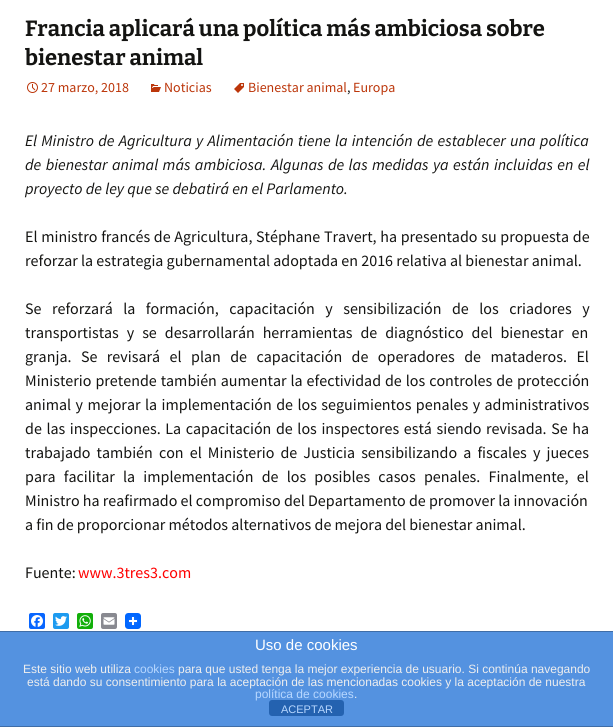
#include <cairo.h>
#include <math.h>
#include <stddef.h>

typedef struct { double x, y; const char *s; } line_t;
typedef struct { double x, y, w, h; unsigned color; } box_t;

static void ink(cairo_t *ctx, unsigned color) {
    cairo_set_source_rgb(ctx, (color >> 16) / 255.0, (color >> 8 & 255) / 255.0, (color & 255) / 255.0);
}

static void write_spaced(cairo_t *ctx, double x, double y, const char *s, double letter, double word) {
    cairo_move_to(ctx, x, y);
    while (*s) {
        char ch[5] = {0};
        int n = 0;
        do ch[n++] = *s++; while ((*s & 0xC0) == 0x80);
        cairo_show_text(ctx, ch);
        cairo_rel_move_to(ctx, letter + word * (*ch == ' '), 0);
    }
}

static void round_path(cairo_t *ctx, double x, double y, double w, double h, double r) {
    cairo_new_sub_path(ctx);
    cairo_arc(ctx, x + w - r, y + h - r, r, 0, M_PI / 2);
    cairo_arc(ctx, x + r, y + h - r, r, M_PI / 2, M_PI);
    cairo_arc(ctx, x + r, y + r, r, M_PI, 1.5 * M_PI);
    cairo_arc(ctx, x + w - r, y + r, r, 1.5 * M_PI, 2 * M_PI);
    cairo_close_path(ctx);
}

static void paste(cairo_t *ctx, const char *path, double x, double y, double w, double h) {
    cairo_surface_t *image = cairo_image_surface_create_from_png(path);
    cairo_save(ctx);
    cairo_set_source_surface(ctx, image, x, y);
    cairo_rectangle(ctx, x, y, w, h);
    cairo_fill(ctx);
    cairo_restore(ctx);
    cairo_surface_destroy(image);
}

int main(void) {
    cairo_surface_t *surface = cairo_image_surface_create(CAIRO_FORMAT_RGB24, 613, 727);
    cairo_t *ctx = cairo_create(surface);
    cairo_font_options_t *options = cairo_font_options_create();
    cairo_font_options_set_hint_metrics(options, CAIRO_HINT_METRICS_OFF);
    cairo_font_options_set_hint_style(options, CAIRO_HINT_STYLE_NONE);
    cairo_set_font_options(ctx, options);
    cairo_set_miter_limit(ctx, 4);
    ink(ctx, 0xFFFFFF);
    cairo_paint(ctx);
    cairo_select_font_face(ctx, "Bitter", CAIRO_FONT_SLANT_NORMAL, CAIRO_FONT_WEIGHT_BOLD);
    cairo_set_font_size(ctx, 22);
    ink(ctx, 0x141412);
    cairo_move_to(ctx, 25, 36);
    cairo_show_text(ctx, "Francia aplicará una política más ambiciosa sobre");
    cairo_move_to(ctx, 25, 65);
    cairo_show_text(ctx, "bienestar animal");
    paste(ctx, "media/1.png", 27, 82, 11, 11);
    cairo_select_font_face(ctx, "Source Sans Pro", CAIRO_FONT_SLANT_NORMAL, CAIRO_FONT_WEIGHT_NORMAL);
    cairo_set_font_size(ctx, 14);
    ink(ctx, 0xBC360A);
    cairo_move_to(ctx, 41, 92);
    cairo_show_text(ctx, "27 marzo, 2018");
    paste(ctx, "media/2.png", 151, 84, 10, 8);
    cairo_move_to(ctx, 164, 92);
    cairo_show_text(ctx, "Noticias");
    paste(ctx, "media/3.png", 234, 83, 10, 10);
    cairo_move_to(ctx, 248, 92);
    cairo_show_text(ctx, "Bienestar animal");
    ink(ctx, 0x141412);
    cairo_move_to(ctx, 347, 92);
    cairo_show_text(ctx, ",");
    ink(ctx, 0xBC360A);
    cairo_move_to(ctx, 353, 92);
    cairo_show_text(ctx, "Europa");
    cairo_select_font_face(ctx, "Source Sans Pro", CAIRO_FONT_SLANT_ITALIC, CAIRO_FONT_WEIGHT_NORMAL);
    cairo_set_font_size(ctx, 16);
    ink(ctx, 0x141412);
    write_spaced(ctx, 25, 146, "El Ministro de Agricultura y Alimentación tiene la intención de establecer una política", 0, 1.1);
    write_spaced(ctx, 25, 170, "de bienestar animal más ambiciosa. Algunas de las medidas ya están incluidas en el", 0, 1.25);
    cairo_move_to(ctx, 25, 194);
    cairo_show_text(ctx, "proyecto de ley que se debatirá en el Parlamento.");
    cairo_select_font_face(ctx, "Source Sans Pro", CAIRO_FONT_SLANT_NORMAL, CAIRO_FONT_WEIGHT_NORMAL);
    write_spaced(ctx, 25, 242, "El ministro francés de Agricultura, Stéphane Travert, ha presentado su propuesta de", 0, 0.5);
    cairo_move_to(ctx, 25, 266);
    cairo_show_text(ctx, "reforzar la estrategia gubernamental adoptada en 2016 relativa al bienestar animal.");
    write_spaced(ctx, 25, 314, "Se reforzará la formación, capacitación y sensibilización de los criadores y", 0, 7.25);
    write_spaced(ctx, 25, 338, "transportistas y se desarrollarán herramientas de diagnóstico del bienestar en", 0, 4.75);
    write_spaced(ctx, 25, 362, "granja. Se revisará el plan de capacitación de operadores de mataderos. El", 0, 6.25);
    write_spaced(ctx, 25, 386, "Ministerio pretende también aumentar la efectividad de los controles de protección", 0, 0.75);
    write_spaced(ctx, 25, 410, "animal y mejorar la implementación de los seguimientos penales y administrativos", 0, 1.25);
    write_spaced(ctx, 25, 434, "de las inspecciones. La capacitación de los inspectores está siendo revisada. Se ha", 0, 1.4);
    write_spaced(ctx, 25, 458, "trabajado también con el Ministerio de Justicia sensibilizando a fiscales y jueces", 0, 2.9);
    write_spaced(ctx, 25, 482, "para facilitar la implementación de los posibles casos penales. Finalmente, el", 0, 5);
    {
        static const line_t items[] = {
            {25, 506, "Ministro ha reafirmado el compromiso del Departamento de promover la innovación"},
            {25, 530, "a fin de proporcionar métodos alternativos de mejora del bienestar animal."},
            {25, 578, "Fuente:"},
        };
        for (size_t i = 0; i < sizeof items / sizeof *items; i++) {
            cairo_move_to(ctx, items[i].x, items[i].y);
            cairo_show_text(ctx, items[i].s);
        }
    }
    ink(ctx, 0xFF0000);
    cairo_move_to(ctx, 78, 578);
    cairo_show_text(ctx, "www.3tres3.com");
    ink(ctx, 0x0866FF);
    round_path(ctx, 29, 613, 16, 16, 2);
    cairo_fill(ctx);
    paste(ctx, "media/4.png", 31, 615, 12, 12);
    ink(ctx, 0x1D9BF0);
    round_path(ctx, 53, 613, 16, 16, 2);
    cairo_fill(ctx);
    paste(ctx, "media/5.png", 55, 616, 12, 10);
    ink(ctx, 0x12AF0A);
    round_path(ctx, 77, 613, 16, 16, 2);
    cairo_fill(ctx);
    paste(ctx, "media/6.png", 79, 615, 12, 12);
    ink(ctx, 0x888990);
    round_path(ctx, 101, 613, 16, 16, 2);
    cairo_fill(ctx);
    paste(ctx, "media/7.png", 103, 617, 12, 8);
    paste(ctx, "media/8.png", 125, 613, 16, 16);
    {
        static const box_t items[] = {
            {0, 632, 613, 94, 0x5492E0},
            {0, 631, 613, 1, 0x3F6DA7},
            {0, 726, 613, 1, 0x3F6DA7},
        };
        for (size_t i = 0; i < sizeof items / sizeof *items; i++) {
            ink(ctx, items[i].color);
            cairo_rectangle(ctx, items[i].x, items[i].y, items[i].w, items[i].h);
            cairo_fill(ctx);
        }
    }
    cairo_select_font_face(ctx, "Liberation Sans", CAIRO_FONT_SLANT_NORMAL, CAIRO_FONT_WEIGHT_NORMAL);
    cairo_set_font_size(ctx, 15);
    ink(ctx, 0xFFFFFF);
    cairo_move_to(ctx, 255, 650);
    cairo_show_text(ctx, "Uso de cookies");
    cairo_set_font_size(ctx, 12);
    ink(ctx, 0xEEEEEE);
    cairo_move_to(ctx, 23, 673);
    cairo_show_text(ctx, "Este sitio web utiliza");
    ink(ctx, 0xB7D7FF);
    cairo_move_to(ctx, 134, 673);
    cairo_show_text(ctx, "cookies");
    ink(ctx, 0xEEEEEE);
    cairo_move_to(ctx, 178, 673);
    cairo_show_text(ctx, "para que usted tenga la mejor experiencia de usuario. Si continúa navegando");
    cairo_move_to(ctx, 27, 686);
    cairo_show_text(ctx, "está dando su consentimiento para la aceptación de las mencionadas cookies y la aceptación de nuestra");
    ink(ctx, 0x2462B0);
    round_path(ctx, 269, 700, 75, 16, 3);
    cairo_fill(ctx);
    ink(ctx, 0xB7D7FF);
    cairo_move_to(ctx, 255, 698);
    cairo_show_text(ctx, "política de cookies");
    ink(ctx, 0xEEEEEE);
    cairo_move_to(ctx, 354, 698);
    cairo_show_text(ctx, ".");
    cairo_set_font_size(ctx, 11);
    ink(ctx, 0xB7D7FF);
    cairo_move_to(ctx, 281, 713);
    cairo_show_text(ctx, "ACEPTAR");
    cairo_surface_write_to_png(surface, "image.png");
    cairo_font_options_destroy(options);
    cairo_destroy(ctx);
    cairo_surface_destroy(surface);
    return 0;
}
